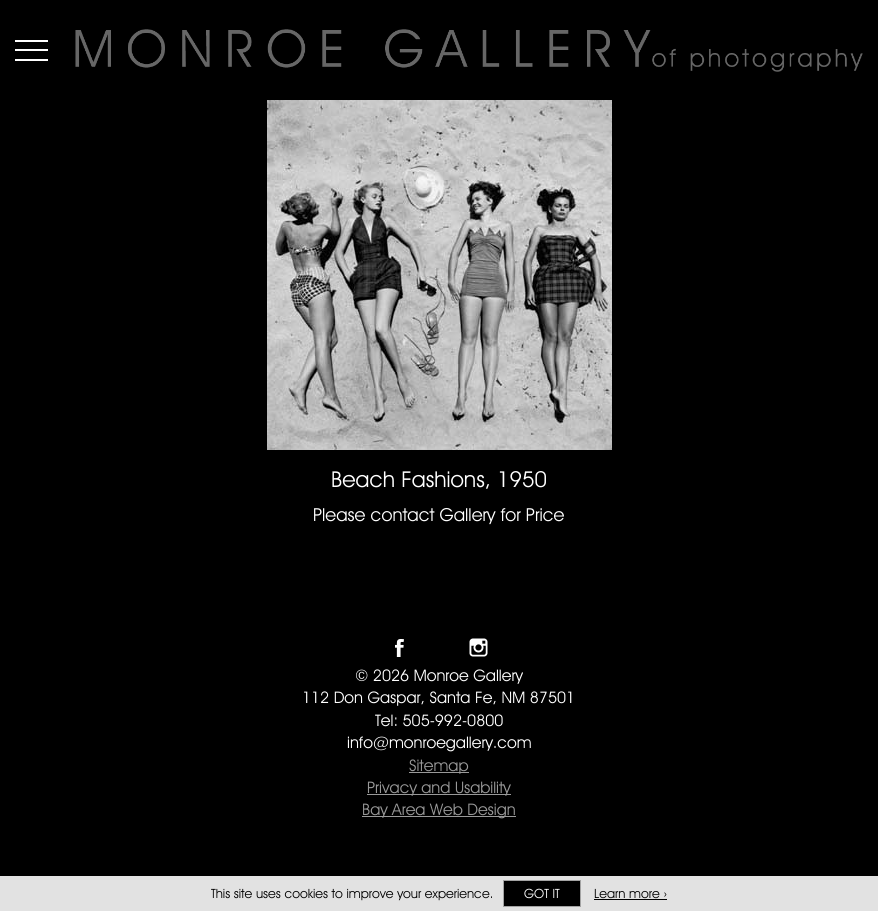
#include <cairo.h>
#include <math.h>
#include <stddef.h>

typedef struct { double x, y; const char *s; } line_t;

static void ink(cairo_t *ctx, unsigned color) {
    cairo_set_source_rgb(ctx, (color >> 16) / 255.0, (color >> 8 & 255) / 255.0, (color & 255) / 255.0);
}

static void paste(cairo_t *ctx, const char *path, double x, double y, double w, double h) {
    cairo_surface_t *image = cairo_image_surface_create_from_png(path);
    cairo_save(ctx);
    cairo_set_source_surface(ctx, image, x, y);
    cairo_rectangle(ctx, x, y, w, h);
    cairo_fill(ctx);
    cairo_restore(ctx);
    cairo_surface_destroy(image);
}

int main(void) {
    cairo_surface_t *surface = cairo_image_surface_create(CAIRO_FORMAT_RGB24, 878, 911);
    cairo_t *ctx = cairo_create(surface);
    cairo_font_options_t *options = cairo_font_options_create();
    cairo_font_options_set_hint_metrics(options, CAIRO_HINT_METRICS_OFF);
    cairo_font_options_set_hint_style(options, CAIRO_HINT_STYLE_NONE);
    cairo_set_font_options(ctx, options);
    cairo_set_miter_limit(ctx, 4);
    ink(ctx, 0x000000);
    cairo_paint(ctx);
    paste(ctx, "media/1.png", 15, 40, 33, 21);
    paste(ctx, "media/2.png", 75, 29, 788, 43);
    paste(ctx, "media/3.png", 267, 100, 345, 350);
    cairo_select_font_face(ctx, "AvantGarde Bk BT", CAIRO_FONT_SLANT_NORMAL, CAIRO_FONT_WEIGHT_NORMAL);
    cairo_set_font_size(ctx, 22);
    ink(ctx, 0xFFFFFF);
    cairo_move_to(ctx, 331, 487);
    cairo_show_text(ctx, "Beach Fashions, 1950");
    cairo_set_font_size(ctx, 18);
    cairo_move_to(ctx, 313, 521);
    cairo_show_text(ctx, "Please contact Gallery for Price");
    paste(ctx, "media/4.png", 395, 639, 9, 18);
    paste(ctx, "media/5.png", 469, 638, 19, 19);
    cairo_set_font_size(ctx, 16);
    {
        static const line_t items[] = {
            {355, 681, "© 2026 Monroe Gallery"},
            {302, 703, "112 Don Gaspar, Santa Fe, NM 87501"},
            {375, 726, "Tel: 505-992-0800"},
            {347, 748, "info@monroegallery.com"},
        };
        for (size_t i = 0; i < sizeof items / sizeof *items; i++) {
            cairo_move_to(ctx, items[i].x, items[i].y);
            cairo_show_text(ctx, items[i].s);
        }
    }
    ink(ctx, 0x999999);
    cairo_rectangle(ctx, 409, 772, 60, 1);
    cairo_fill(ctx);
    cairo_move_to(ctx, 409, 771);
    cairo_show_text(ctx, "Sitemap");
    cairo_rectangle(ctx, 367, 794, 144, 1);
    cairo_fill(ctx);
    cairo_move_to(ctx, 367, 793);
    cairo_show_text(ctx, "Privacy and Usability");
    cairo_rectangle(ctx, 362, 816, 154, 1);
    cairo_fill(ctx);
    cairo_move_to(ctx, 362, 815);
    cairo_show_text(ctx, "Bay Area Web Design");
    ink(ctx, 0xE2E2E2);
    cairo_rectangle(ctx, 0, 876, 878, 35);
    cairo_fill(ctx);
    cairo_set_font_size(ctx, 12.8);
    ink(ctx, 0x000000);
    cairo_move_to(ctx, 211, 898);
    cairo_show_text(ctx, "This site uses cookies to improve your experience.");
    cairo_rectangle(ctx, 503.5, 880.5, 77, 26);
    cairo_fill_preserve(ctx);
    ink(ctx, 0xA3A3A3);
    cairo_set_line_width(ctx, 1);
    cairo_stroke(ctx);
    ink(ctx, 0xFFFFFF);
    cairo_move_to(ctx, 524, 898);
    cairo_show_text(ctx, "GOT IT");
    ink(ctx, 0x000000);
    cairo_move_to(ctx, 594, 898);
    cairo_show_text(ctx, "Learn more ›");
    cairo_rectangle(ctx, 594, 899, 73, 1);
    cairo_fill(ctx);
    cairo_surface_write_to_png(surface, "image.png");
    cairo_font_options_destroy(options);
    cairo_destroy(ctx);
    cairo_surface_destroy(surface);
    return 0;
}
